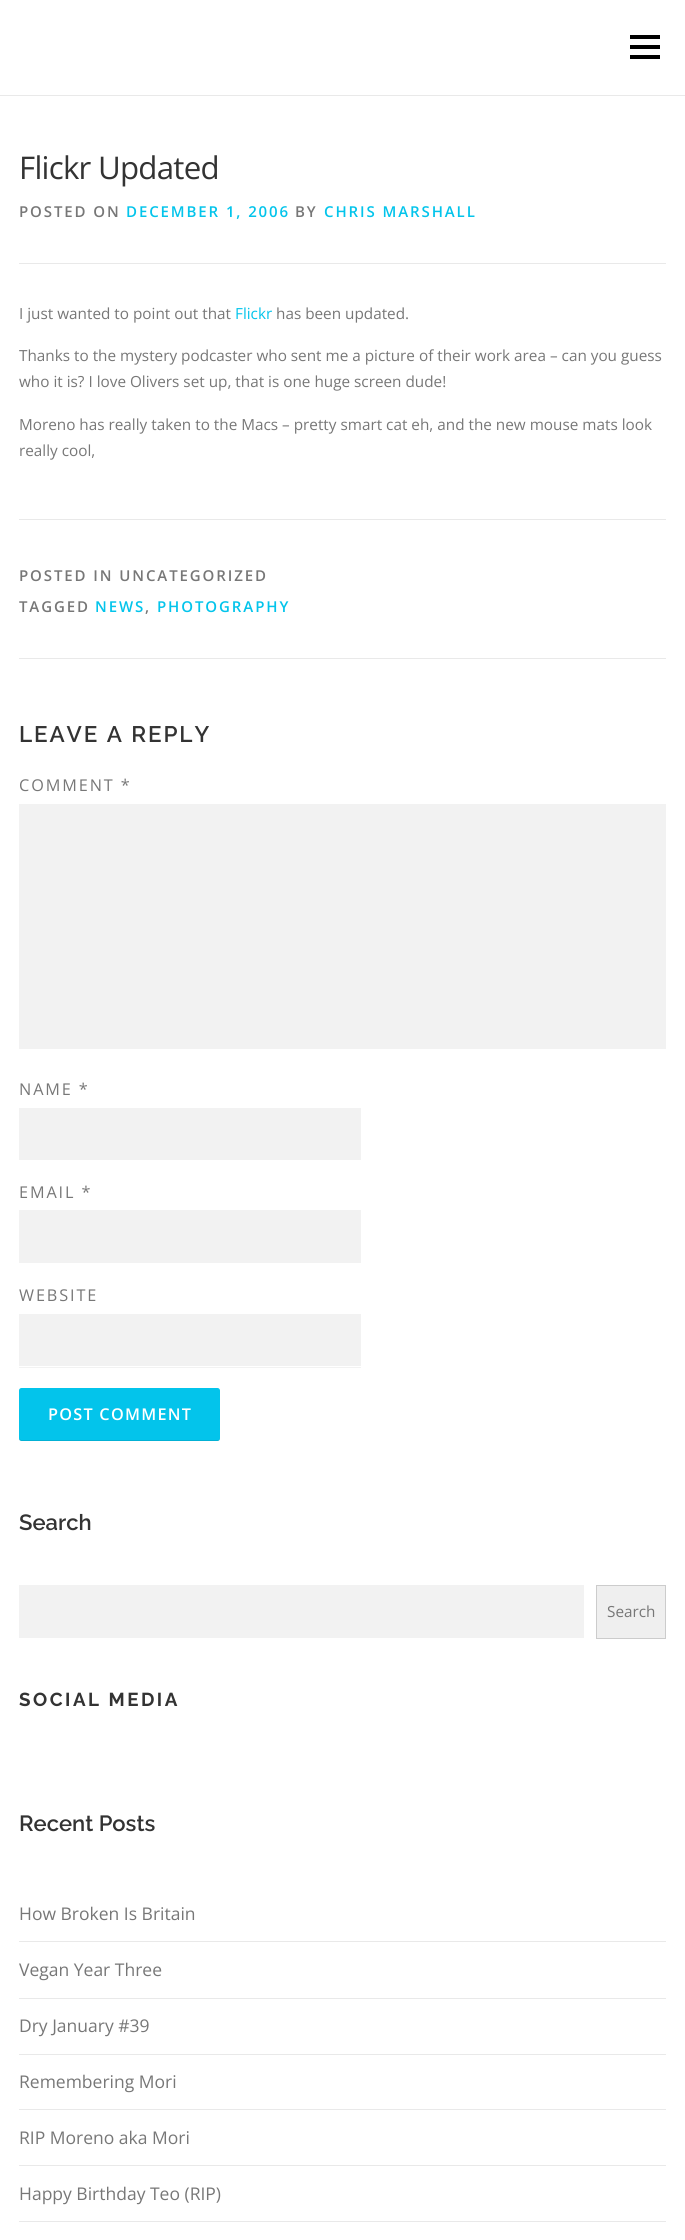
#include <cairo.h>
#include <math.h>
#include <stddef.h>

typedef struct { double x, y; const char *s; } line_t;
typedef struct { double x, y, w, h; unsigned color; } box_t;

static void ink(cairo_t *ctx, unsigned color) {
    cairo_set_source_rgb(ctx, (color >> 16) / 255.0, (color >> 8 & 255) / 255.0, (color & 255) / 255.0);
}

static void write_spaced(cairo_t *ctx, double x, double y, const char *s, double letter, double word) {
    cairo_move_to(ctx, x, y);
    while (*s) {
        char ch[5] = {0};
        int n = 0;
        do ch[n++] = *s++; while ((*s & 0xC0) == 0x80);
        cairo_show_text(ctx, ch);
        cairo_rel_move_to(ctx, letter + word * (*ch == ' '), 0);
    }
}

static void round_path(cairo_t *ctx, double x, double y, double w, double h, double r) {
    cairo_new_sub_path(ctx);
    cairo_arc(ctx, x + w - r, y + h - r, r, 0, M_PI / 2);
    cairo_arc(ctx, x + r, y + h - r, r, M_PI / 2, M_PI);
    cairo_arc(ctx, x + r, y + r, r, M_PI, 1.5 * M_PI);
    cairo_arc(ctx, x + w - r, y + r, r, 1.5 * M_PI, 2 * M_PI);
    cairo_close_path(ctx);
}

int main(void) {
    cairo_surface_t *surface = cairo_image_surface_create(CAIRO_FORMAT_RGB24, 685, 2240);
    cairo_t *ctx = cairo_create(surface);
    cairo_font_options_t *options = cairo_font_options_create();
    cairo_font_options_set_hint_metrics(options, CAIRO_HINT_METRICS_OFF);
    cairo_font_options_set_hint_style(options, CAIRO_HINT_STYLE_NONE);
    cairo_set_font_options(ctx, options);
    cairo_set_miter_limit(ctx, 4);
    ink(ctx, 0xFFFFFF);
    cairo_paint(ctx);
    {
        static const box_t items[] = {
            {630, 45, 30, 4, 0x000000},
            {630, 35, 30, 4, 0x000000},
            {630, 55, 30, 4, 0x000000},
            {0, 95, 685, 1, 0xE9E9E9},
        };
        for (size_t i = 0; i < sizeof items / sizeof *items; i++) {
            ink(ctx, items[i].color);
            cairo_rectangle(ctx, items[i].x, items[i].y, items[i].w, items[i].h);
            cairo_fill(ctx);
        }
    }
    cairo_select_font_face(ctx, "Open Sans", CAIRO_FONT_SLANT_NORMAL, CAIRO_FONT_WEIGHT_NORMAL);
    cairo_set_font_size(ctx, 31.25);
    ink(ctx, 0x333333);
    write_spaced(ctx, 19, 179, "Flickr Updated", -0.75, 0);
    ink(ctx, 0xE9E9E9);
    cairo_rectangle(ctx, 19, 263, 647, 1);
    cairo_fill(ctx);
    cairo_select_font_face(ctx, "Open Sans SemiBold", CAIRO_FONT_SLANT_NORMAL, CAIRO_FONT_WEIGHT_NORMAL);
    cairo_set_font_size(ctx, 15);
    ink(ctx, 0x777777);
    write_spaced(ctx, 19, 217, "POSTED ON", 1.9, 0);
    ink(ctx, 0x03C4EB);
    write_spaced(ctx, 126, 217, "DECEMBER 1, 2006", 1.9, 0);
    ink(ctx, 0x777777);
    write_spaced(ctx, 295, 217, "BY", 1.9, 0);
    ink(ctx, 0x03C4EB);
    write_spaced(ctx, 324, 217, "CHRIS MARSHALL", 1.9, 0);
    cairo_select_font_face(ctx, "Open Sans", CAIRO_FONT_SLANT_NORMAL, CAIRO_FONT_WEIGHT_NORMAL);
    cairo_set_font_size(ctx, 15.3);
    ink(ctx, 0x777777);
    cairo_move_to(ctx, 19, 319);
    cairo_show_text(ctx, "I just wanted to point out that");
    ink(ctx, 0x03C4EB);
    cairo_move_to(ctx, 235, 319);
    cairo_show_text(ctx, "Flickr");
    ink(ctx, 0x777777);
    {
        static const line_t items[] = {
            {276, 319, "has been updated."},
            {19, 361, "Thanks to the mystery podcaster who sent me a picture of their work area – can you guess"},
            {19, 387, "who it is? I love Olivers set up, that is one huge screen dude!"},
            {19, 430, "Moreno has really taken to the Macs – pretty smart cat eh, and the new mouse mats look"},
            {19, 456, "really cool,"},
        };
        for (size_t i = 0; i < sizeof items / sizeof *items; i++) {
            cairo_move_to(ctx, items[i].x, items[i].y);
            cairo_show_text(ctx, items[i].s);
        }
    }
    ink(ctx, 0xE9E9E9);
    cairo_rectangle(ctx, 19, 519, 647, 1);
    cairo_fill(ctx);
    cairo_select_font_face(ctx, "Open Sans SemiBold", CAIRO_FONT_SLANT_NORMAL, CAIRO_FONT_WEIGHT_NORMAL);
    cairo_set_font_size(ctx, 15);
    ink(ctx, 0x777777);
    write_spaced(ctx, 19, 581, "POSTED IN UNCATEGORIZED", 1.9, 0);
    write_spaced(ctx, 19, 612, "TAGGED", 1.9, 0);
    ink(ctx, 0x03C4EB);
    write_spaced(ctx, 95, 612, "NEWS", 1.9, 0);
    ink(ctx, 0x777777);
    write_spaced(ctx, 145, 612, ",", 1.9, 0);
    ink(ctx, 0x03C4EB);
    write_spaced(ctx, 157, 612, "PHOTOGRAPHY", 1.9, 0);
    ink(ctx, 0xE9E9E9);
    cairo_rectangle(ctx, 19, 658, 647, 1);
    cairo_fill(ctx);
    cairo_select_font_face(ctx, "Raleway SemiBold", CAIRO_FONT_SLANT_NORMAL, CAIRO_FONT_WEIGHT_NORMAL);
    cairo_set_font_size(ctx, 22.5);
    ink(ctx, 0x333333);
    write_spaced(ctx, 19, 742, "LEAVE A REPLY", 1.9, 0);
    cairo_select_font_face(ctx, "Open Sans", CAIRO_FONT_SLANT_NORMAL, CAIRO_FONT_WEIGHT_NORMAL);
    cairo_set_font_size(ctx, 16.25);
    ink(ctx, 0x777777);
    write_spaced(ctx, 19, 791, "COMMENT *", 1.9, 0);
    ink(ctx, 0xF2F2F2);
    cairo_rectangle(ctx, 19, 804, 647, 245);
    cairo_fill(ctx);
    ink(ctx, 0x777777);
    write_spaced(ctx, 19, 1095, "NAME *", 1.9, 0);
    ink(ctx, 0xF2F2F2);
    cairo_rectangle(ctx, 19, 1108, 342, 52);
    cairo_fill(ctx);
    ink(ctx, 0x777777);
    write_spaced(ctx, 19, 1198, "EMAIL *", 1.9, 0);
    ink(ctx, 0xF2F2F2);
    cairo_rectangle(ctx, 19, 1210, 342, 53);
    cairo_fill(ctx);
    ink(ctx, 0x777777);
    write_spaced(ctx, 19, 1301, "WEBSITE", 1.9, 0);
    ink(ctx, 0xF2F2F2);
    cairo_rectangle(ctx, 19, 1314, 342, 54);
    cairo_fill(ctx);
    ink(ctx, 0xFFFFFF);
    cairo_rectangle(ctx, 19, 1366, 342, 1);
    cairo_fill(ctx);
    ink(ctx, 0x03C4EB);
    round_path(ctx, 19, 1388, 201, 53, 2.5);
    cairo_fill(ctx);
    cairo_set_source_rgba(ctx, 0, 0, 0, 0.1);
    cairo_new_path(ctx);
    cairo_move_to(ctx, 19, 1438);
    cairo_line_to(ctx, 19, 1440);
    cairo_line_to(ctx, 21, 1441);
    cairo_line_to(ctx, 218, 1441);
    cairo_curve_to(ctx, 219, 1441, 220, 1440, 220, 1438);
    cairo_curve_to(ctx, 220, 1439, 219, 1440, 218, 1440);
    cairo_line_to(ctx, 21, 1440);
    cairo_line_to(ctx, 19, 1439);
    cairo_close_path(ctx);
    cairo_fill(ctx);
    cairo_select_font_face(ctx, "Open Sans SemiBold", CAIRO_FONT_SLANT_NORMAL, CAIRO_FONT_WEIGHT_NORMAL);
    ink(ctx, 0xFFFFFF);
    write_spaced(ctx, 48, 1420, "POST COMMENT", 1.25, 0);
    cairo_select_font_face(ctx, "Raleway SemiBold", CAIRO_FONT_SLANT_NORMAL, CAIRO_FONT_WEIGHT_NORMAL);
    cairo_set_font_size(ctx, 22);
    ink(ctx, 0x333333);
    cairo_move_to(ctx, 19, 1530);
    cairo_show_text(ctx, "Search");
    ink(ctx, 0xF2F2F2);
    cairo_rectangle(ctx, 19, 1585, 565, 53);
    cairo_fill(ctx);
    ink(ctx, 0xEFEFEF);
    cairo_rectangle(ctx, 596.5, 1585.5, 69, 53);
    cairo_fill_preserve(ctx);
    ink(ctx, 0xCCCCCC);
    cairo_set_line_width(ctx, 1);
    cairo_stroke(ctx);
    cairo_select_font_face(ctx, "Open Sans", CAIRO_FONT_SLANT_NORMAL, CAIRO_FONT_WEIGHT_NORMAL);
    cairo_set_font_size(ctx, 15.3);
    ink(ctx, 0x777777);
    cairo_move_to(ctx, 607, 1617);
    cairo_show_text(ctx, "Search");
    cairo_select_font_face(ctx, "Raleway", CAIRO_FONT_SLANT_NORMAL, CAIRO_FONT_WEIGHT_BOLD);
    cairo_set_font_size(ctx, 18.75);
    ink(ctx, 0x333333);
    write_spaced(ctx, 19, 1706, "SOCIAL MEDIA", 2.5, 0);
    cairo_select_font_face(ctx, "Raleway SemiBold", CAIRO_FONT_SLANT_NORMAL, CAIRO_FONT_WEIGHT_NORMAL);
    cairo_set_font_size(ctx, 22);
    cairo_move_to(ctx, 19, 1831);
    cairo_show_text(ctx, "Recent Posts");
    ink(ctx, 0xE9E9E9);
    cairo_rectangle(ctx, 19, 1941, 647, 1);
    cairo_fill(ctx);
    cairo_select_font_face(ctx, "Open Sans", CAIRO_FONT_SLANT_NORMAL, CAIRO_FONT_WEIGHT_NORMAL);
    cairo_set_font_size(ctx, 17.5);
    ink(ctx, 0x777777);
    cairo_move_to(ctx, 19, 1920);
    cairo_show_text(ctx, "How Broken Is Britain");
    ink(ctx, 0xE9E9E9);
    cairo_rectangle(ctx, 19, 1998, 647, 1);
    cairo_fill(ctx);
    ink(ctx, 0x777777);
    cairo_move_to(ctx, 19, 1976);
    cairo_show_text(ctx, "Vegan Year Three");
    ink(ctx, 0xE9E9E9);
    cairo_rectangle(ctx, 19, 2054, 647, 1);
    cairo_fill(ctx);
    ink(ctx, 0x777777);
    cairo_move_to(ctx, 19, 2032);
    cairo_show_text(ctx, "Dry January #39");
    ink(ctx, 0xE9E9E9);
    cairo_rectangle(ctx, 19, 2109, 647, 1);
    cairo_fill(ctx);
    ink(ctx, 0x777777);
    cairo_move_to(ctx, 19, 2088);
    cairo_show_text(ctx, "Remembering Mori");
    ink(ctx, 0xE9E9E9);
    cairo_rectangle(ctx, 19, 2165, 647, 1);
    cairo_fill(ctx);
    ink(ctx, 0x777777);
    cairo_move_to(ctx, 19, 2144);
    cairo_show_text(ctx, "RIP Moreno aka Mori");
    ink(ctx, 0xE9E9E9);
    cairo_rectangle(ctx, 19, 2221, 647, 1);
    cairo_fill(ctx);
    ink(ctx, 0x777777);
    cairo_move_to(ctx, 19, 2200);
    cairo_show_text(ctx, "Happy Birthday Teo (RIP)");
    cairo_surface_write_to_png(surface, "image.png");
    cairo_font_options_destroy(options);
    cairo_destroy(ctx);
    cairo_surface_destroy(surface);
    return 0;
}
